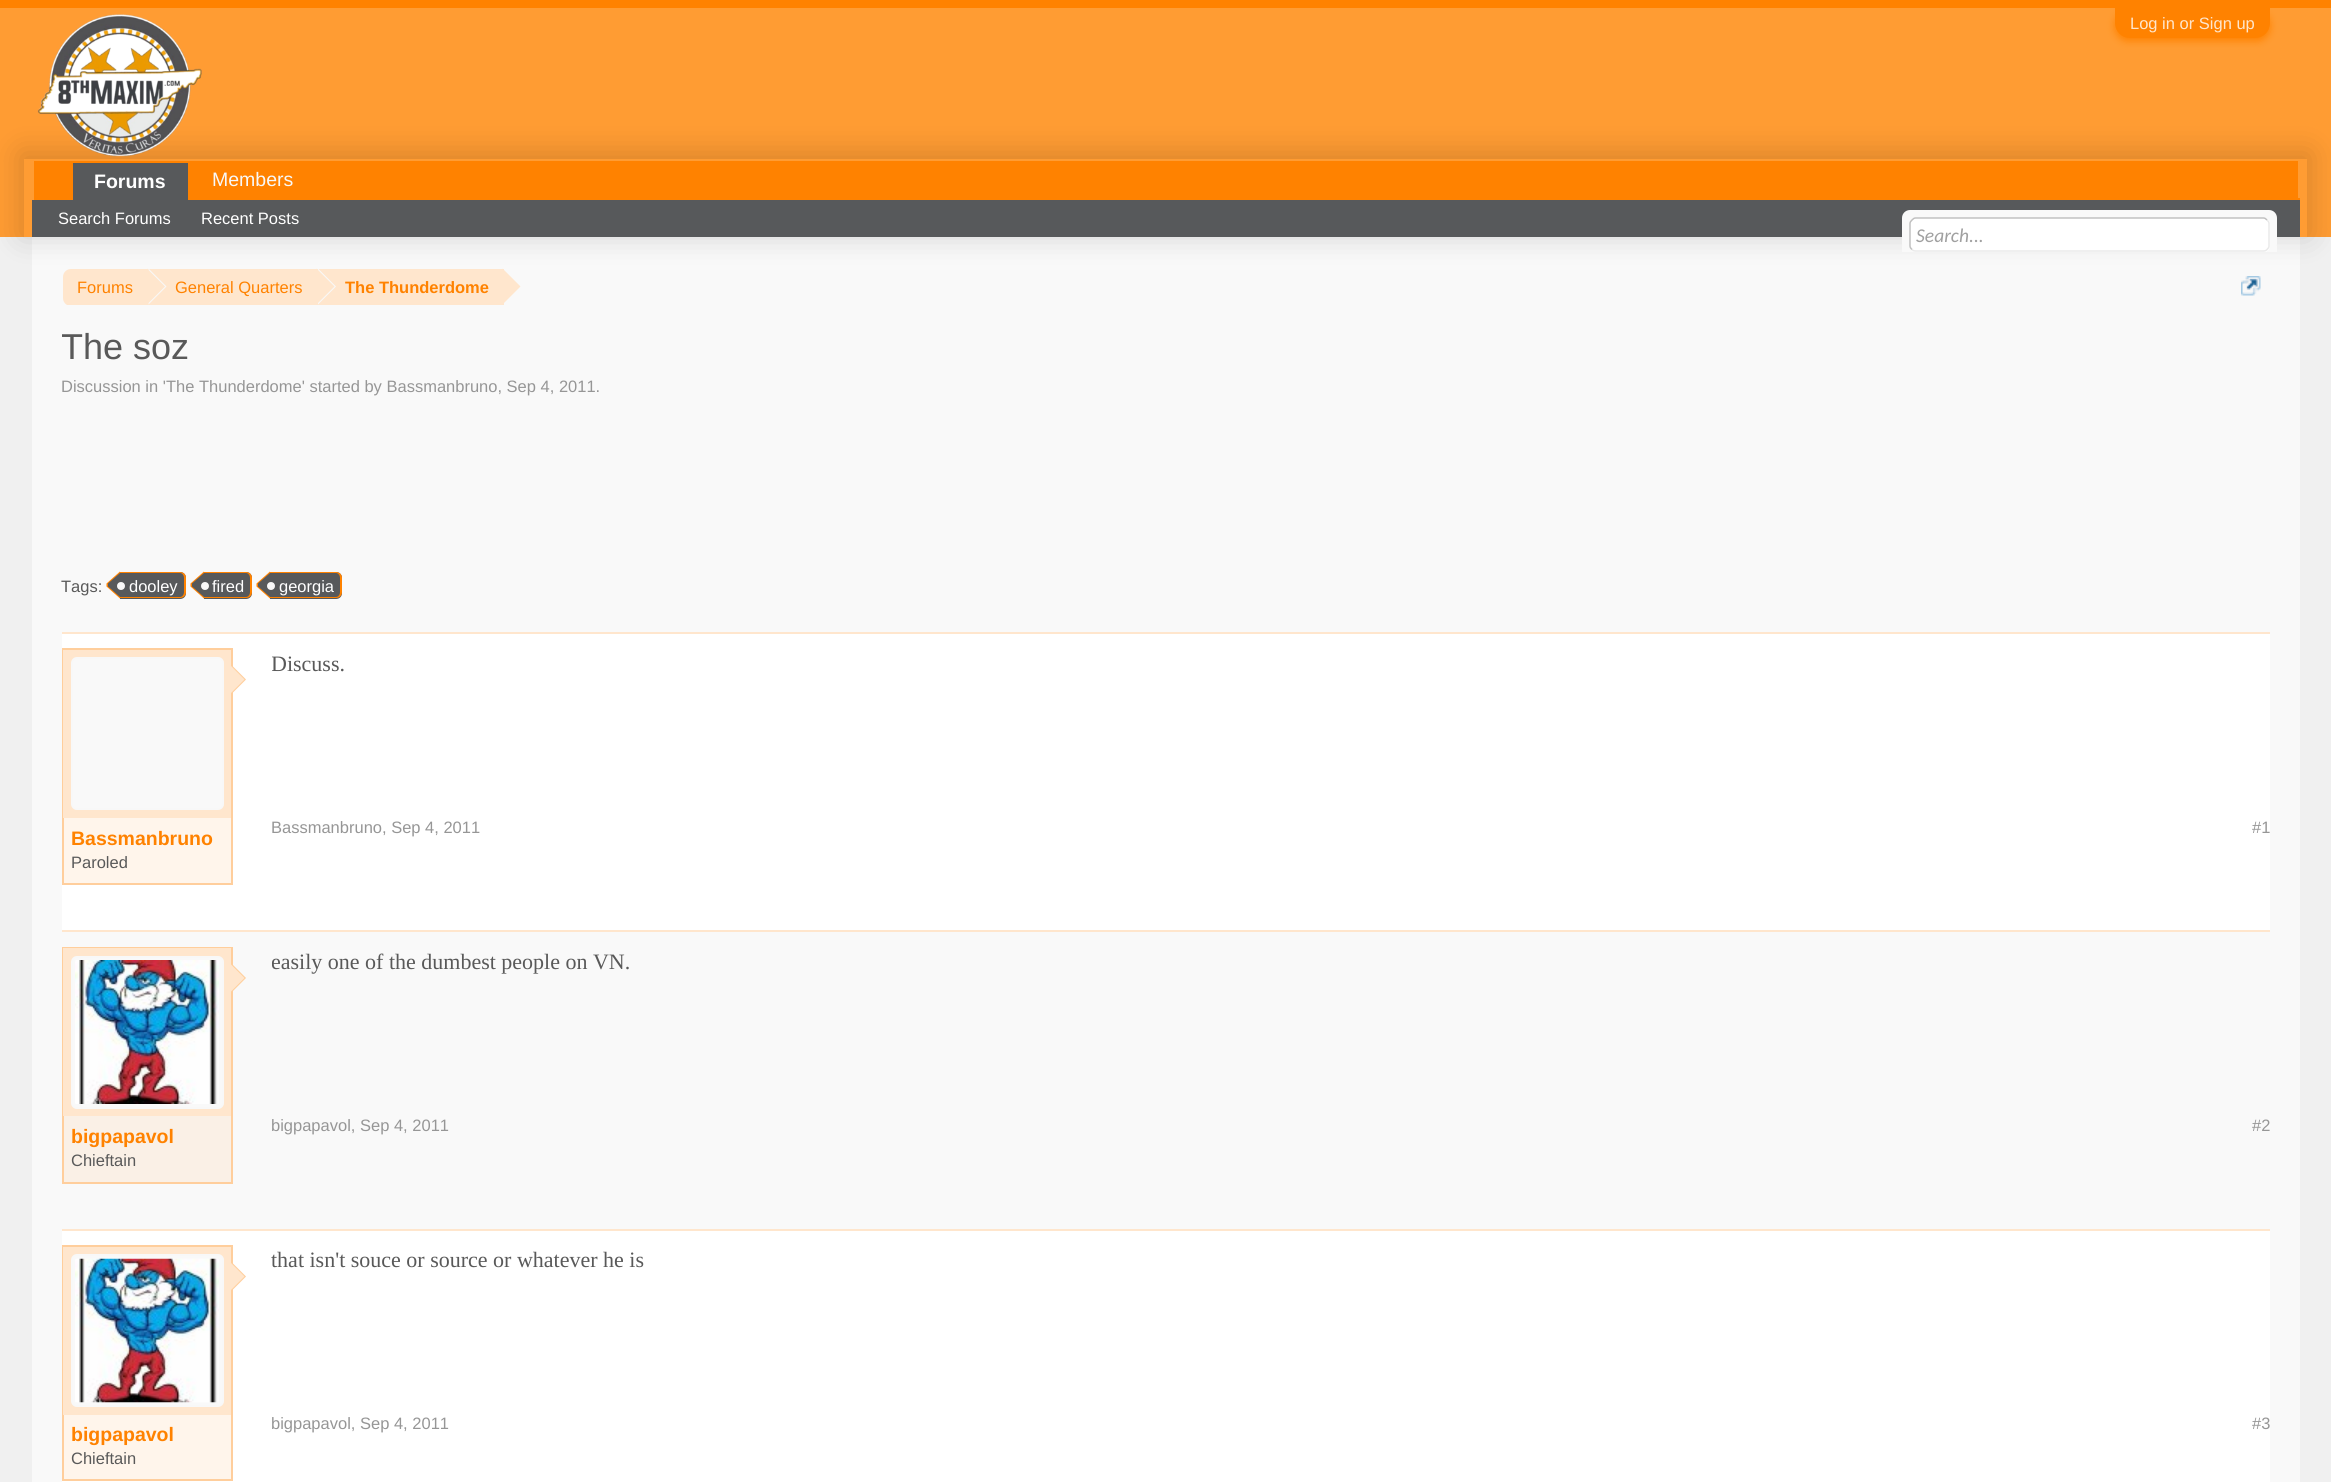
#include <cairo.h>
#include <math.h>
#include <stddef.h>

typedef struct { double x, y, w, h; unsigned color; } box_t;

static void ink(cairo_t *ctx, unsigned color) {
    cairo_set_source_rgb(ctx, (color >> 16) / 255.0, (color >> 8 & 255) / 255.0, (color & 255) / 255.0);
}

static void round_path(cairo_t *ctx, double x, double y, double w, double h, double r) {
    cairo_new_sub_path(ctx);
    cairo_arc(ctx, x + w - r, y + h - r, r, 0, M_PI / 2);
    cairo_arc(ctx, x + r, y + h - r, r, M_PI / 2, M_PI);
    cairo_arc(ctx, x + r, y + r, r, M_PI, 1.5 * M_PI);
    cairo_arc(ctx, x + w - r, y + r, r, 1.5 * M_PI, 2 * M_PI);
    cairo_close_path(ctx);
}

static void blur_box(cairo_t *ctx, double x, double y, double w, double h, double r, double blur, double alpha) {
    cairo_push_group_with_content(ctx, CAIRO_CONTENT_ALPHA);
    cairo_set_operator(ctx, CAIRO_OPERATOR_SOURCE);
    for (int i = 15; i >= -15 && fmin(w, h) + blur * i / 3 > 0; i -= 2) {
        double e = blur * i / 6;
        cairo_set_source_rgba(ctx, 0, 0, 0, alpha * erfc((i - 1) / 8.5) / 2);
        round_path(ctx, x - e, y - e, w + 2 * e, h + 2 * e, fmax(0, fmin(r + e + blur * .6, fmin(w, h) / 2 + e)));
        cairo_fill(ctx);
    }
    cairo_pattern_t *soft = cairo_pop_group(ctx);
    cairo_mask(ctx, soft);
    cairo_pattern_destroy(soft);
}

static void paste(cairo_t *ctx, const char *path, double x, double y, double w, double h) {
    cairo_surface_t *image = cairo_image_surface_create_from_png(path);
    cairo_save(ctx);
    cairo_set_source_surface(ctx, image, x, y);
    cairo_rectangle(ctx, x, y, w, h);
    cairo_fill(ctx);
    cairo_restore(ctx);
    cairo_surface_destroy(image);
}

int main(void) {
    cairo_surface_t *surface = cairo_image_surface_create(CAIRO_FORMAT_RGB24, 2331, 1482);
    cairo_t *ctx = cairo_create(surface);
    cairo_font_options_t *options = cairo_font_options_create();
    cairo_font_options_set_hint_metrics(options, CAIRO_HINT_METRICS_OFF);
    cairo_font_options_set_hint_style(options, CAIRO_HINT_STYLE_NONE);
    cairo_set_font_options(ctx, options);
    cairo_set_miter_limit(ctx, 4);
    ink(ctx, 0xF0F0F0);
    cairo_paint(ctx);
    ink(ctx, 0xFF8200);
    cairo_rectangle(ctx, 0, 0, 2331, 8);
    cairo_fill(ctx);
    ink(ctx, 0xFF9C33);
    cairo_rectangle(ctx, 0, 8, 2331, 229);
    cairo_fill(ctx);
    ink(ctx, 0xFF8200);
    blur_box(ctx, 2115, 11, 155, 30, 15, 4, 1);
    ink(ctx, 0xFF8200);
    cairo_new_path(ctx);
    cairo_move_to(ctx, 2115, 8);
    cairo_line_to(ctx, 2270, 8);
    cairo_line_to(ctx, 2270, 23);
    cairo_curve_to(ctx, 2270, 31.5, 2263.5, 38, 2255, 38);
    cairo_line_to(ctx, 2130, 38);
    cairo_curve_to(ctx, 2121.5, 38, 2115, 31.5, 2115, 23);
    cairo_close_path(ctx);
    cairo_fill(ctx);
    cairo_select_font_face(ctx, "Liberation Sans", CAIRO_FONT_SLANT_NORMAL, CAIRO_FONT_WEIGHT_NORMAL);
    cairo_set_font_size(ctx, 16.5);
    ink(ctx, 0xFFE6CD);
    cairo_move_to(ctx, 2130, 29);
    cairo_show_text(ctx, "Log in or Sign up");
    ink(ctx, 0xF9F9F9);
    cairo_rectangle(ctx, 32, 237, 2268, 1245);
    cairo_fill(ctx);
    cairo_save(ctx);
    cairo_rectangle(ctx, 63, 269, 2205, 36);
    cairo_clip(ctx);
    ink(ctx, 0xFFE6CD);
    cairo_new_path(ctx);
    cairo_move_to(ctx, 71, 269);
    cairo_line_to(ctx, 149, 269);
    cairo_line_to(ctx, 149, 306);
    cairo_line_to(ctx, 71, 306);
    cairo_curve_to(ctx, 66.5, 306, 63, 302.5, 63, 298);
    cairo_line_to(ctx, 63, 277);
    cairo_curve_to(ctx, 63, 272.5, 66.5, 269, 71, 269);
    cairo_close_path(ctx);
    cairo_fill(ctx);
    cairo_restore(ctx);
    ink(ctx, 0xFFE6CD);
    cairo_rectangle(ctx, 149, 269, 355, 36);
    cairo_fill(ctx);
    paste(ctx, "media/2.png", 2241, 276, 20, 20);
    cairo_save(ctx);
    cairo_set_fill_rule(ctx, CAIRO_FILL_RULE_EVEN_ODD);
    cairo_new_path(ctx);
    cairo_move_to(ctx, 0, 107);
    cairo_line_to(ctx, 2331, 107);
    cairo_line_to(ctx, 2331, 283);
    cairo_line_to(ctx, 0, 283);
    cairo_close_path(ctx);
    cairo_move_to(ctx, 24, 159);
    cairo_line_to(ctx, 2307, 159);
    cairo_line_to(ctx, 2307, 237);
    cairo_line_to(ctx, 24, 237);
    cairo_close_path(ctx);
    cairo_clip(ctx);
    ink(ctx, 0x000000);
    blur_box(ctx, 21, 153, 2289, 84, 0, 15, 0.15);
    cairo_restore(ctx);
    paste(ctx, "media/1.png", 37, 14, 165, 143);
    {
        static const box_t items[] = {
            {34, 161, 2264, 37, 0xFF8200},
            {32, 198, 2268, 2, 0xFF8200},
            {32, 198, 2, 2, 0xFF9C33},
        };
        for (size_t i = 0; i < sizeof items / sizeof *items; i++) {
            ink(ctx, items[i].color);
            cairo_rectangle(ctx, items[i].x, items[i].y, items[i].w, items[i].h);
            cairo_fill(ctx);
        }
    }
    cairo_set_font_size(ctx, 19.5);
    ink(ctx, 0xF8F8F8);
    cairo_move_to(ctx, 212, 186);
    cairo_show_text(ctx, "Members");
    ink(ctx, 0x57595B);
    cairo_rectangle(ctx, 73, 163, 115, 37);
    cairo_fill(ctx);
    cairo_select_font_face(ctx, "Liberation Sans", CAIRO_FONT_SLANT_NORMAL, CAIRO_FONT_WEIGHT_BOLD);
    ink(ctx, 0xFFFFFF);
    cairo_move_to(ctx, 94, 188);
    cairo_show_text(ctx, "Forums");
    ink(ctx, 0x57595B);
    cairo_rectangle(ctx, 32, 200, 2268, 37);
    cairo_fill(ctx);
    cairo_select_font_face(ctx, "Liberation Sans", CAIRO_FONT_SLANT_NORMAL, CAIRO_FONT_WEIGHT_NORMAL);
    cairo_set_font_size(ctx, 16.5);
    ink(ctx, 0xFFFFFF);
    cairo_move_to(ctx, 58, 224);
    cairo_show_text(ctx, "Search Forums");
    cairo_move_to(ctx, 201, 224);
    cairo_show_text(ctx, "Recent Posts");
    ink(ctx, 0xF9F9F9);
    round_path(ctx, 1902, 210, 375, 42, 8);
    cairo_fill(ctx);
    cairo_rectangle(ctx, 1902, 246, 375, 6);
    cairo_fill(ctx);
    ink(ctx, 0xFFFFFF);
    round_path(ctx, 1910, 218, 360, 34, 6);
    cairo_fill(ctx);
    cairo_new_path(ctx);
    cairo_move_to(ctx, 2267, 220);
    cairo_curve_to(ctx, 2268, 221, 2269, 222, 2269, 223.5);
    cairo_line_to(ctx, 2269, 246);
    cairo_curve_to(ctx, 2269, 247.5, 2268, 248.5, 2267, 249.5);
    cairo_curve_to(ctx, 2266, 250.5, 2265, 251, 2263.5, 251);
    cairo_line_to(ctx, 1915.5, 251);
    cairo_curve_to(ctx, 1914, 251, 1913, 250.5, 1912, 249.5);
    ink(ctx, 0xE9E9E9);
    cairo_set_line_width(ctx, 1.5);
    cairo_stroke(ctx);
    cairo_new_path(ctx);
    cairo_move_to(ctx, 1912, 249.5);
    cairo_curve_to(ctx, 1911, 248.5, 1910, 247.5, 1910, 246);
    cairo_line_to(ctx, 1910, 223.5);
    cairo_curve_to(ctx, 1910, 222, 1911, 221, 1912, 220);
    cairo_curve_to(ctx, 1913, 219, 1914, 218, 1915.5, 218);
    cairo_line_to(ctx, 2263.5, 218);
    cairo_curve_to(ctx, 2265, 218, 2266, 219, 2267, 220);
    ink(ctx, 0xC0C0C0);
    cairo_stroke(ctx);
    cairo_select_font_face(ctx, "Carlito", CAIRO_FONT_SLANT_ITALIC, CAIRO_FONT_WEIGHT_NORMAL);
    cairo_set_font_size(ctx, 19.5);
    ink(ctx, 0xA0A0A0);
    cairo_move_to(ctx, 1916, 242);
    cairo_show_text(ctx, "Search...");
    cairo_select_font_face(ctx, "Liberation Sans", CAIRO_FONT_SLANT_NORMAL, CAIRO_FONT_WEIGHT_NORMAL);
    cairo_set_font_size(ctx, 16.5);
    ink(ctx, 0xFF8200);
    cairo_move_to(ctx, 77, 293);
    cairo_show_text(ctx, "Forums");
    ink(ctx, 0xF8F8F8);
    cairo_new_path(ctx);
    cairo_move_to(ctx, 148.5, 304.5);
    cairo_line_to(ctx, 148.5, 268.5);
    cairo_line_to(ctx, 166.5, 286.5);
    cairo_close_path(ctx);
    cairo_fill(ctx);
    ink(ctx, 0xFFE6CD);
    cairo_new_path(ctx);
    cairo_move_to(ctx, 147, 304.5);
    cairo_line_to(ctx, 147, 268.5);
    cairo_line_to(ctx, 165, 286.5);
    cairo_close_path(ctx);
    cairo_fill(ctx);
    ink(ctx, 0xFF8200);
    cairo_move_to(ctx, 175, 293);
    cairo_show_text(ctx, "General Quarters");
    ink(ctx, 0xF8F8F8);
    cairo_new_path(ctx);
    cairo_move_to(ctx, 318, 304.5);
    cairo_line_to(ctx, 318, 268.5);
    cairo_line_to(ctx, 336, 286.5);
    cairo_close_path(ctx);
    cairo_fill(ctx);
    ink(ctx, 0xFFE6CD);
    cairo_new_path(ctx);
    cairo_move_to(ctx, 316.5, 304.5);
    cairo_line_to(ctx, 316.5, 268.5);
    cairo_line_to(ctx, 334.5, 286.5);
    cairo_close_path(ctx);
    cairo_fill(ctx);
    cairo_select_font_face(ctx, "Liberation Sans", CAIRO_FONT_SLANT_NORMAL, CAIRO_FONT_WEIGHT_BOLD);
    ink(ctx, 0xFF8200);
    cairo_move_to(ctx, 345, 293);
    cairo_show_text(ctx, "The Thunderdome");
    ink(ctx, 0xFFE6CD);
    cairo_new_path(ctx);
    cairo_move_to(ctx, 502.5, 304.5);
    cairo_line_to(ctx, 502.5, 268.5);
    cairo_line_to(ctx, 520.5, 286.5);
    cairo_close_path(ctx);
    cairo_fill(ctx);
    cairo_save(ctx);
    cairo_rectangle(ctx, 62, 321, 2208, 51);
    cairo_clip(ctx);
    cairo_select_font_face(ctx, "Liberation Sans", CAIRO_FONT_SLANT_NORMAL, CAIRO_FONT_WEIGHT_NORMAL);
    cairo_set_font_size(ctx, 36);
    ink(ctx, 0x595959);
    cairo_move_to(ctx, 61, 359);
    cairo_show_text(ctx, "The soz");
    cairo_restore(ctx);
    cairo_select_font_face(ctx, "Liberation Sans", CAIRO_FONT_SLANT_NORMAL, CAIRO_FONT_WEIGHT_NORMAL);
    ink(ctx, 0x969696);
    cairo_move_to(ctx, 61, 392);
    cairo_show_text(ctx, "Discussion in 'The Thunderdome' started by Bassmanbruno, Sep 4, 2011.");
    ink(ctx, 0x595959);
    cairo_move_to(ctx, 61, 592);
    cairo_show_text(ctx, "Tags:");
    ink(ctx, 0x57595B);
    cairo_new_path(ctx);
    cairo_move_to(ctx, 120, 572);
    cairo_line_to(ctx, 180, 572);
    cairo_curve_to(ctx, 183.5, 572, 186, 574.5, 186, 578);
    cairo_line_to(ctx, 186, 593);
    cairo_curve_to(ctx, 186, 596.5, 183.5, 599, 180, 599);
    cairo_line_to(ctx, 120, 599);
    cairo_close_path(ctx);
    cairo_fill(ctx);
    ink(ctx, 0xFF8200);
    cairo_set_fill_rule(ctx, CAIRO_FILL_RULE_EVEN_ODD);
    cairo_new_path(ctx);
    cairo_move_to(ctx, 120, 572);
    cairo_line_to(ctx, 180, 572);
    cairo_curve_to(ctx, 183, 572, 186, 574, 186, 578);
    cairo_line_to(ctx, 186, 592);
    cairo_curve_to(ctx, 186, 596, 183, 598, 180, 598);
    cairo_line_to(ctx, 120, 598);
    cairo_close_path(ctx);
    cairo_move_to(ctx, 120, 573);
    cairo_line_to(ctx, 180, 573);
    cairo_curve_to(ctx, 182, 573, 184, 575, 184, 578);
    cairo_line_to(ctx, 184, 592);
    cairo_curve_to(ctx, 184, 595, 182, 597, 180, 597);
    cairo_line_to(ctx, 120, 597);
    cairo_close_path(ctx);
    cairo_fill(ctx);
    cairo_set_fill_rule(ctx, CAIRO_FILL_RULE_WINDING);
    cairo_new_path(ctx);
    cairo_move_to(ctx, 120, 571.5);
    cairo_line_to(ctx, 120, 598.5);
    cairo_line_to(ctx, 106.5, 586.5);
    cairo_line_to(ctx, 106.5, 583.5);
    cairo_close_path(ctx);
    cairo_fill(ctx);
    ink(ctx, 0x57595B);
    cairo_new_path(ctx);
    cairo_move_to(ctx, 120, 573);
    cairo_line_to(ctx, 120, 597);
    cairo_line_to(ctx, 108, 586.5);
    cairo_line_to(ctx, 108, 583.5);
    cairo_close_path(ctx);
    cairo_fill(ctx);
    ink(ctx, 0xF9F9F9);
    cairo_arc(ctx, 121, 586, 3, 0, 2 * M_PI);
    cairo_fill_preserve(ctx);
    ink(ctx, 0xF8F8F8);
    cairo_set_line_width(ctx, 2);
    cairo_stroke(ctx);
    ink(ctx, 0xFFFFFF);
    cairo_move_to(ctx, 129, 592);
    cairo_show_text(ctx, "dooley");
    ink(ctx, 0x57595B);
    cairo_new_path(ctx);
    cairo_move_to(ctx, 204, 572);
    cairo_line_to(ctx, 246, 572);
    cairo_curve_to(ctx, 249.5, 572, 252, 574.5, 252, 578);
    cairo_line_to(ctx, 252, 593);
    cairo_curve_to(ctx, 252, 596.5, 249.5, 599, 246, 599);
    cairo_line_to(ctx, 204, 599);
    cairo_close_path(ctx);
    cairo_fill(ctx);
    ink(ctx, 0xFF8200);
    cairo_set_fill_rule(ctx, CAIRO_FILL_RULE_EVEN_ODD);
    cairo_new_path(ctx);
    cairo_move_to(ctx, 204, 572);
    cairo_line_to(ctx, 246, 572);
    cairo_curve_to(ctx, 249, 572, 252, 574, 252, 578);
    cairo_line_to(ctx, 252, 592);
    cairo_curve_to(ctx, 252, 596, 249, 598, 246, 598);
    cairo_line_to(ctx, 204, 598);
    cairo_close_path(ctx);
    cairo_move_to(ctx, 204, 573);
    cairo_line_to(ctx, 246, 573);
    cairo_curve_to(ctx, 248, 573, 250, 575, 250, 578);
    cairo_line_to(ctx, 250, 592);
    cairo_curve_to(ctx, 250, 595, 248, 597, 246, 597);
    cairo_line_to(ctx, 204, 597);
    cairo_close_path(ctx);
    cairo_fill(ctx);
    cairo_set_fill_rule(ctx, CAIRO_FILL_RULE_WINDING);
    cairo_new_path(ctx);
    cairo_move_to(ctx, 204, 571.5);
    cairo_line_to(ctx, 204, 598.5);
    cairo_line_to(ctx, 190.5, 586.5);
    cairo_line_to(ctx, 190.5, 583.5);
    cairo_close_path(ctx);
    cairo_fill(ctx);
    ink(ctx, 0x57595B);
    cairo_new_path(ctx);
    cairo_move_to(ctx, 204, 573);
    cairo_line_to(ctx, 204, 597);
    cairo_line_to(ctx, 192, 586.5);
    cairo_line_to(ctx, 192, 583.5);
    cairo_close_path(ctx);
    cairo_fill(ctx);
    ink(ctx, 0xF9F9F9);
    cairo_arc(ctx, 205, 586, 3, 0, 2 * M_PI);
    cairo_fill_preserve(ctx);
    ink(ctx, 0xF8F8F8);
    cairo_stroke(ctx);
    ink(ctx, 0xFFFFFF);
    cairo_move_to(ctx, 212, 592);
    cairo_show_text(ctx, "fired");
    ink(ctx, 0x57595B);
    cairo_new_path(ctx);
    cairo_move_to(ctx, 270, 572);
    cairo_line_to(ctx, 336, 572);
    cairo_curve_to(ctx, 339.5, 572, 342, 574.5, 342, 578);
    cairo_line_to(ctx, 342, 593);
    cairo_curve_to(ctx, 342, 596.5, 339.5, 599, 336, 599);
    cairo_line_to(ctx, 270, 599);
    cairo_close_path(ctx);
    cairo_fill(ctx);
    ink(ctx, 0xFF8200);
    cairo_set_fill_rule(ctx, CAIRO_FILL_RULE_EVEN_ODD);
    cairo_new_path(ctx);
    cairo_move_to(ctx, 270, 572);
    cairo_line_to(ctx, 336, 572);
    cairo_curve_to(ctx, 339, 572, 342, 574, 342, 578);
    cairo_line_to(ctx, 342, 592);
    cairo_curve_to(ctx, 342, 596, 339, 598, 336, 598);
    cairo_line_to(ctx, 270, 598);
    cairo_close_path(ctx);
    cairo_move_to(ctx, 270, 573);
    cairo_line_to(ctx, 336, 573);
    cairo_curve_to(ctx, 338, 573, 340, 575, 340, 578);
    cairo_line_to(ctx, 340, 592);
    cairo_curve_to(ctx, 340, 595, 338, 597, 336, 597);
    cairo_line_to(ctx, 270, 597);
    cairo_close_path(ctx);
    cairo_fill(ctx);
    cairo_set_fill_rule(ctx, CAIRO_FILL_RULE_WINDING);
    cairo_new_path(ctx);
    cairo_move_to(ctx, 270, 571.5);
    cairo_line_to(ctx, 270, 598.5);
    cairo_line_to(ctx, 256.5, 586.5);
    cairo_line_to(ctx, 256.5, 583.5);
    cairo_close_path(ctx);
    cairo_fill(ctx);
    ink(ctx, 0x57595B);
    cairo_new_path(ctx);
    cairo_move_to(ctx, 270, 573);
    cairo_line_to(ctx, 270, 597);
    cairo_line_to(ctx, 258, 586.5);
    cairo_line_to(ctx, 258, 583.5);
    cairo_close_path(ctx);
    cairo_fill(ctx);
    ink(ctx, 0xF9F9F9);
    cairo_arc(ctx, 271, 586, 3, 0, 2 * M_PI);
    cairo_fill_preserve(ctx);
    ink(ctx, 0xF8F8F8);
    cairo_stroke(ctx);
    ink(ctx, 0xFFFFFF);
    cairo_move_to(ctx, 279, 592);
    cairo_show_text(ctx, "georgia");
    cairo_rectangle(ctx, 62, 634, 2208, 296);
    cairo_fill(ctx);
    ink(ctx, 0xFFE6CD);
    cairo_rectangle(ctx, 62, 632, 2208, 2);
    cairo_fill(ctx);
    cairo_save(ctx);
    cairo_rectangle(ctx, 272, 648, 1998, 153);
    cairo_clip(ctx);
    cairo_select_font_face(ctx, "Liberation Serif", CAIRO_FONT_SLANT_NORMAL, CAIRO_FONT_WEIGHT_NORMAL);
    cairo_set_font_size(ctx, 22);
    ink(ctx, 0x595959);
    cairo_move_to(ctx, 271, 671);
    cairo_show_text(ctx, "Discuss.");
    cairo_restore(ctx);
    ink(ctx, 0x969696);
    cairo_move_to(ctx, 271, 833);
    cairo_show_text(ctx, "Bassmanbruno, Sep 4, 2011");
    cairo_move_to(ctx, 2252, 833);
    cairo_show_text(ctx, "#1");
    ink(ctx, 0xFFF5EB);
    cairo_rectangle(ctx, 64, 818, 167, 65);
    cairo_fill(ctx);
    cairo_rectangle(ctx, 63, 649, 169, 235);
    ink(ctx, 0xFFCE9C);
    cairo_stroke(ctx);
    ink(ctx, 0xFFE6CD);
    cairo_rectangle(ctx, 63, 650, 168, 168);
    cairo_fill(ctx);
    ink(ctx, 0xF9F9F9);
    round_path(ctx, 72, 658, 151, 151, 5);
    cairo_fill_preserve(ctx);
    ink(ctx, 0xF8F8F8);
    cairo_stroke(ctx);
    ink(ctx, 0xFFCE9C);
    cairo_new_path(ctx);
    cairo_move_to(ctx, 231, 694.5);
    cairo_line_to(ctx, 231, 664.5);
    cairo_line_to(ctx, 246, 679.5);
    cairo_close_path(ctx);
    cairo_fill(ctx);
    ink(ctx, 0xFFE6CD);
    cairo_new_path(ctx);
    cairo_move_to(ctx, 229.5, 694.5);
    cairo_line_to(ctx, 229.5, 664.5);
    cairo_line_to(ctx, 244.5, 679.5);
    cairo_close_path(ctx);
    cairo_fill(ctx);
    cairo_select_font_face(ctx, "Liberation Sans", CAIRO_FONT_SLANT_NORMAL, CAIRO_FONT_WEIGHT_BOLD);
    cairo_set_font_size(ctx, 19.5);
    ink(ctx, 0xFF8200);
    cairo_move_to(ctx, 71, 845);
    cairo_show_text(ctx, "Bassmanbruno");
    cairo_select_font_face(ctx, "Liberation Sans", CAIRO_FONT_SLANT_NORMAL, CAIRO_FONT_WEIGHT_NORMAL);
    cairo_set_font_size(ctx, 16.5);
    ink(ctx, 0x595959);
    cairo_move_to(ctx, 71, 868);
    cairo_show_text(ctx, "Paroled");
    ink(ctx, 0xFFE6CD);
    cairo_rectangle(ctx, 62, 930, 2208, 2);
    cairo_fill(ctx);
    cairo_save(ctx);
    cairo_rectangle(ctx, 272, 947, 1998, 153);
    cairo_clip(ctx);
    cairo_select_font_face(ctx, "Liberation Serif", CAIRO_FONT_SLANT_NORMAL, CAIRO_FONT_WEIGHT_NORMAL);
    cairo_set_font_size(ctx, 22);
    ink(ctx, 0x595959);
    cairo_move_to(ctx, 271, 969);
    cairo_show_text(ctx, "easily one of the dumbest people on VN.");
    cairo_restore(ctx);
    ink(ctx, 0x969696);
    cairo_move_to(ctx, 271, 1131);
    cairo_show_text(ctx, "bigpapavol, Sep 4, 2011");
    cairo_move_to(ctx, 2252, 1131);
    cairo_show_text(ctx, "#2");
    ink(ctx, 0xFAF0E6);
    cairo_rectangle(ctx, 64, 1116, 167, 66);
    cairo_fill(ctx);
    cairo_rectangle(ctx, 63, 948, 169, 235);
    ink(ctx, 0xFFCE9C);
    cairo_stroke(ctx);
    ink(ctx, 0xFFE6CD);
    cairo_rectangle(ctx, 63, 948, 168, 168);
    cairo_fill(ctx);
    ink(ctx, 0xF9F9F9);
    round_path(ctx, 72, 957, 151, 151, 5);
    cairo_fill_preserve(ctx);
    ink(ctx, 0xF8F8F8);
    cairo_stroke(ctx);
    paste(ctx, "media/3.png", 75, 960, 144, 144);
    ink(ctx, 0xFFCE9C);
    cairo_new_path(ctx);
    cairo_move_to(ctx, 231, 993);
    cairo_line_to(ctx, 231, 963);
    cairo_line_to(ctx, 246, 978);
    cairo_close_path(ctx);
    cairo_fill(ctx);
    ink(ctx, 0xFFE6CD);
    cairo_new_path(ctx);
    cairo_move_to(ctx, 229.5, 993);
    cairo_line_to(ctx, 229.5, 963);
    cairo_line_to(ctx, 244.5, 978);
    cairo_close_path(ctx);
    cairo_fill(ctx);
    cairo_select_font_face(ctx, "Liberation Sans", CAIRO_FONT_SLANT_NORMAL, CAIRO_FONT_WEIGHT_BOLD);
    cairo_set_font_size(ctx, 19.5);
    ink(ctx, 0xFF8200);
    cairo_move_to(ctx, 71, 1143);
    cairo_show_text(ctx, "bigpapavol");
    cairo_select_font_face(ctx, "Liberation Sans", CAIRO_FONT_SLANT_NORMAL, CAIRO_FONT_WEIGHT_NORMAL);
    cairo_set_font_size(ctx, 16.5);
    ink(ctx, 0x595959);
    cairo_move_to(ctx, 71, 1166);
    cairo_show_text(ctx, "Chieftain");
    ink(ctx, 0xFFFFFF);
    cairo_rectangle(ctx, 62, 1231, 2208, 251);
    cairo_fill(ctx);
    ink(ctx, 0xFFE6CD);
    cairo_rectangle(ctx, 62, 1229, 2208, 2);
    cairo_fill(ctx);
    cairo_select_font_face(ctx, "Liberation Serif", CAIRO_FONT_SLANT_NORMAL, CAIRO_FONT_WEIGHT_NORMAL);
    cairo_set_font_size(ctx, 22);
    ink(ctx, 0x595959);
    cairo_move_to(ctx, 271, 1267);
    cairo_show_text(ctx, "that isn't souce or source or whatever he is");
    cairo_select_font_face(ctx, "Liberation Sans", CAIRO_FONT_SLANT_NORMAL, CAIRO_FONT_WEIGHT_NORMAL);
    cairo_set_font_size(ctx, 16.5);
    ink(ctx, 0x969696);
    cairo_move_to(ctx, 271, 1429);
    cairo_show_text(ctx, "bigpapavol, Sep 4, 2011");
    cairo_move_to(ctx, 2252, 1429);
    cairo_show_text(ctx, "#3");
    ink(ctx, 0xFFF5EB);
    cairo_rectangle(ctx, 64, 1415, 167, 64);
    cairo_fill(ctx);
    cairo_rectangle(ctx, 63, 1246, 169, 234);
    ink(ctx, 0xFFCE9C);
    cairo_stroke(ctx);
    ink(ctx, 0xFFE6CD);
    cairo_rectangle(ctx, 63, 1247, 168, 168);
    cairo_fill(ctx);
    ink(ctx, 0xF9F9F9);
    round_path(ctx, 72, 1255, 151, 151, 5);
    cairo_fill_preserve(ctx);
    ink(ctx, 0xF8F8F8);
    cairo_stroke(ctx);
    paste(ctx, "media/4.png", 75, 1258, 144, 145);
    ink(ctx, 0xFFCE9C);
    cairo_new_path(ctx);
    cairo_move_to(ctx, 231, 1291.5);
    cairo_line_to(ctx, 231, 1261.5);
    cairo_line_to(ctx, 246, 1276.5);
    cairo_close_path(ctx);
    cairo_fill(ctx);
    ink(ctx, 0xFFE6CD);
    cairo_new_path(ctx);
    cairo_move_to(ctx, 229.5, 1291.5);
    cairo_line_to(ctx, 229.5, 1261.5);
    cairo_line_to(ctx, 244.5, 1276.5);
    cairo_close_path(ctx);
    cairo_fill(ctx);
    cairo_select_font_face(ctx, "Liberation Sans", CAIRO_FONT_SLANT_NORMAL, CAIRO_FONT_WEIGHT_BOLD);
    cairo_set_font_size(ctx, 19.5);
    ink(ctx, 0xFF8200);
    cairo_move_to(ctx, 71, 1441);
    cairo_show_text(ctx, "bigpapavol");
    cairo_select_font_face(ctx, "Liberation Sans", CAIRO_FONT_SLANT_NORMAL, CAIRO_FONT_WEIGHT_NORMAL);
    cairo_set_font_size(ctx, 16.5);
    ink(ctx, 0x595959);
    cairo_move_to(ctx, 71, 1464);
    cairo_show_text(ctx, "Chieftain");
    cairo_surface_write_to_png(surface, "image.png");
    cairo_font_options_destroy(options);
    cairo_destroy(ctx);
    cairo_surface_destroy(surface);
    return 0;
}
